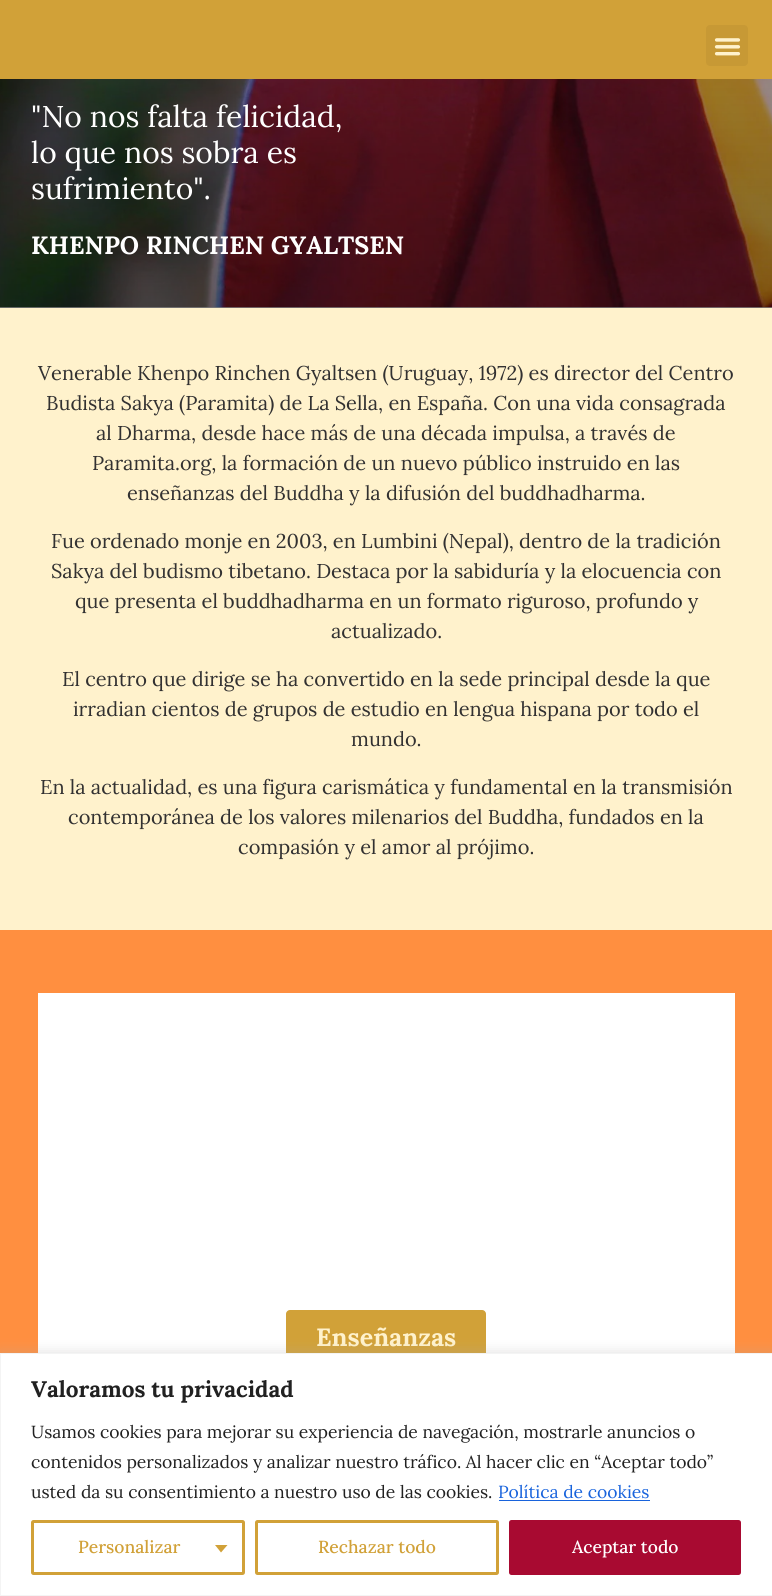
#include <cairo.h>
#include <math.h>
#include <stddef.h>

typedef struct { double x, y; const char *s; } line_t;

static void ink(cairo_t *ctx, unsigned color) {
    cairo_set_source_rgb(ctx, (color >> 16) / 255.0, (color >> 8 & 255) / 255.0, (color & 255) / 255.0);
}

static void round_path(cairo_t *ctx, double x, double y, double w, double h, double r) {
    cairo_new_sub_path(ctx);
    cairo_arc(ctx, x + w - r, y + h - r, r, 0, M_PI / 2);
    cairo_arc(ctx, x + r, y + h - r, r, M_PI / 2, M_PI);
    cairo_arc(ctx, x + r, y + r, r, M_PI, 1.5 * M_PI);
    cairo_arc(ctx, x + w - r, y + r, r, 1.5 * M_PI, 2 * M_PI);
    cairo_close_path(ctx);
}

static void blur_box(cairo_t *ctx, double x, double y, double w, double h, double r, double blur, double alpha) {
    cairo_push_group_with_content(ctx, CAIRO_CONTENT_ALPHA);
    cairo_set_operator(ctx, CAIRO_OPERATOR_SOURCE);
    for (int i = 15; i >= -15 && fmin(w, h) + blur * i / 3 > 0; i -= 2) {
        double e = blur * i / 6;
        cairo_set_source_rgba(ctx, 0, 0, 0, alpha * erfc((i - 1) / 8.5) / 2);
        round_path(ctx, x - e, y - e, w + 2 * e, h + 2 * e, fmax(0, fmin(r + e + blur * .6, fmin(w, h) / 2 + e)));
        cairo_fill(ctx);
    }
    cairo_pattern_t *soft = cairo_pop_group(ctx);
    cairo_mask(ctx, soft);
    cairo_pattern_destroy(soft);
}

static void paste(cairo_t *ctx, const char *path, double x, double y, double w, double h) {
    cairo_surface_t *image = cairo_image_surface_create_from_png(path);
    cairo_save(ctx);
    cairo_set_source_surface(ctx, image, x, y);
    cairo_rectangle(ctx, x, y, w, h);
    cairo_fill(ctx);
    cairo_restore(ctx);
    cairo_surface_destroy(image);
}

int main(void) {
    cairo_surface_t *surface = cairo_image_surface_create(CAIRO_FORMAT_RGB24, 772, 1596);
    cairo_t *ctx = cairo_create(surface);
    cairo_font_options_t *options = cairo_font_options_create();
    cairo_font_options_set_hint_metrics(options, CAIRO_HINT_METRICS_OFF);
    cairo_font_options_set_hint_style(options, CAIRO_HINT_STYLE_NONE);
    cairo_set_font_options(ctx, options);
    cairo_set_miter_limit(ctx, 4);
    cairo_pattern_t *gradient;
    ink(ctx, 0xFFFFFF);
    cairo_paint(ctx);
    ink(ctx, 0xD1A138);
    cairo_rectangle(ctx, 0, 0, 772, 79);
    cairo_fill(ctx);
    ink(ctx, 0xC79935);
    round_path(ctx, 706, 25, 42, 41, 4);
    cairo_fill(ctx);
    paste(ctx, "media/1.png", 714, 38, 27, 18);
    paste(ctx, "media/2.png", 0, 79, 772, 229);
    gradient = cairo_pattern_create_linear(386, -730, 386, 308);
    cairo_pattern_add_color_stop_rgba(gradient, 0, 0, 0, 0, 0);
    cairo_pattern_add_color_stop_rgba(gradient, 1, 0, 0, 0, 0.5);
    cairo_set_source(ctx, gradient);
    cairo_pattern_destroy(gradient);
    cairo_rectangle(ctx, 0, 79, 772, 229);
    cairo_fill(ctx);
    cairo_select_font_face(ctx, "Lora", CAIRO_FONT_SLANT_NORMAL, CAIRO_FONT_WEIGHT_NORMAL);
    cairo_set_font_size(ctx, 30);
    ink(ctx, 0xFFFFFF);
    {
        static const line_t items[] = {
            {31, 127, "\"No nos falta felicidad,"},
            {31, 163, "lo que nos sobra es"},
            {31, 199, "sufrimiento\"."},
        };
        for (size_t i = 0; i < sizeof items / sizeof *items; i++) {
            cairo_move_to(ctx, items[i].x, items[i].y);
            cairo_show_text(ctx, items[i].s);
        }
    }
    cairo_select_font_face(ctx, "Lora", CAIRO_FONT_SLANT_NORMAL, CAIRO_FONT_WEIGHT_BOLD);
    cairo_set_font_size(ctx, 25);
    cairo_move_to(ctx, 31, 254);
    cairo_show_text(ctx, "KHENPO RINCHEN GYALTSEN");
    ink(ctx, 0xFFF2CC);
    cairo_rectangle(ctx, 0, 308, 772, 622);
    cairo_fill(ctx);
    cairo_select_font_face(ctx, "Lora", CAIRO_FONT_SLANT_NORMAL, CAIRO_FONT_WEIGHT_NORMAL);
    cairo_set_font_size(ctx, 20);
    ink(ctx, 0x323131);
    {
        static const line_t items[] = {
            {38, 380, "Venerable Khenpo Rinchen Gyaltsen (Uruguay, 1972) es director del Centro"},
            {46, 410, "Budista Sakya (Paramita) de La Sella, en España. Con una vida consagrada"},
            {96, 440, "al Dharma, desde hace más de una década impulsa, a través de"},
            {92, 470, "Paramita.org, la formación de un nuevo público instruido en las"},
            {127, 500, "enseñanzas del Buddha y la difusión del buddhadharma."},
            {51, 548, "Fue ordenado monje en 2003, en Lumbini (Nepal), dentro de la tradición"},
            {51, 578, "Sakya del budismo tibetano. Destaca por la sabiduría y la elocuencia con"},
            {75, 608, "que presenta el buddhadharma en un formato riguroso, profundo y"},
            {331, 638, "actualizado."},
            {62, 686, "El centro que dirige se ha convertido en la sede principal desde la que"},
            {73, 716, "irradian cientos de grupos de estudio en lengua hispana por todo el"},
            {351, 746, "mundo."},
            {40, 794, "En la actualidad, es una figura carismática y fundamental en la transmisión"},
            {68, 824, "contemporánea de los valores milenarios del Buddha, fundados en la"},
            {238, 854, "compasión y el amor al prójimo."},
        };
        for (size_t i = 0; i < sizeof items / sizeof *items; i++) {
            cairo_move_to(ctx, items[i].x, items[i].y);
            cairo_show_text(ctx, items[i].s);
        }
    }
    ink(ctx, 0xFF8F40);
    cairo_rectangle(ctx, 0, 930, 772, 423);
    cairo_fill(ctx);
    ink(ctx, 0xFFFFFF);
    cairo_rectangle(ctx, 38, 993, 697, 360);
    cairo_fill(ctx);
    ink(ctx, 0xD1A138);
    round_path(ctx, 286, 1310, 200, 55, 4);
    cairo_fill(ctx);
    cairo_select_font_face(ctx, "Lora", CAIRO_FONT_SLANT_NORMAL, CAIRO_FONT_WEIGHT_BOLD);
    cairo_set_font_size(ctx, 25);
    ink(ctx, 0xFFF2CC);
    cairo_move_to(ctx, 316, 1346);
    cairo_show_text(ctx, "Enseñanzas");
    ink(ctx, 0xACABAB);
    blur_box(ctx, 0, 1351, 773, 244, 0, 6, 0.3);
    ink(ctx, 0xFFFFFF);
    cairo_rectangle(ctx, 0.5, 1353.5, 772, 242);
    cairo_fill_preserve(ctx);
    ink(ctx, 0xF4F4F4);
    cairo_set_line_width(ctx, 1);
    cairo_stroke(ctx);
    cairo_set_font_size(ctx, 22.5);
    ink(ctx, 0x212121);
    cairo_move_to(ctx, 31, 1397);
    cairo_show_text(ctx, "Valoramos tu privacidad");
    cairo_select_font_face(ctx, "Lora", CAIRO_FONT_SLANT_NORMAL, CAIRO_FONT_WEIGHT_NORMAL);
    cairo_set_font_size(ctx, 17.5);
    {
        static const line_t items[] = {
            {31, 1438, "Usamos cookies para mejorar su experiencia de navegación, mostrarle anuncios o"},
            {31, 1468, "contenidos personalizados y analizar nuestro tráfico. Al hacer clic en “Aceptar todo”"},
            {31, 1498, "usted da su consentimiento a nuestro uso de las cookies."},
        };
        for (size_t i = 0; i < sizeof items / sizeof *items; i++) {
            cairo_move_to(ctx, items[i].x, items[i].y);
            cairo_show_text(ctx, items[i].s);
        }
    }
    ink(ctx, 0x1863DC);
    cairo_move_to(ctx, 498, 1498);
    cairo_show_text(ctx, "Política de cookies");
    cairo_rectangle(ctx, 499, 1500, 151, 1);
    cairo_fill(ctx);
    round_path(ctx, 32.5, 1521.5, 211, 52, 1);
    ink(ctx, 0xD1A138);
    cairo_set_line_width(ctx, 3);
    cairo_stroke(ctx);
    cairo_select_font_face(ctx, "Lora Medium", CAIRO_FONT_SLANT_NORMAL, CAIRO_FONT_WEIGHT_NORMAL);
    cairo_move_to(ctx, 78, 1553);
    cairo_show_text(ctx, "Personalizar");
    cairo_new_path(ctx);
    cairo_move_to(ctx, 215, 1545);
    cairo_line_to(ctx, 227.5, 1545);
    cairo_line_to(ctx, 221, 1552.5);
    cairo_close_path(ctx);
    cairo_fill(ctx);
    round_path(ctx, 256.5, 1521.5, 241, 52, 1);
    cairo_stroke(ctx);
    cairo_move_to(ctx, 318, 1553);
    cairo_show_text(ctx, "Rechazar todo");
    ink(ctx, 0xA80A31);
    round_path(ctx, 510.5, 1521.5, 229, 52, 1);
    cairo_fill_preserve(ctx);
    cairo_stroke(ctx);
    ink(ctx, 0xFFFFFF);
    cairo_move_to(ctx, 572, 1553);
    cairo_show_text(ctx, "Aceptar todo");
    cairo_surface_write_to_png(surface, "image.png");
    cairo_font_options_destroy(options);
    cairo_destroy(ctx);
    cairo_surface_destroy(surface);
    return 0;
}
